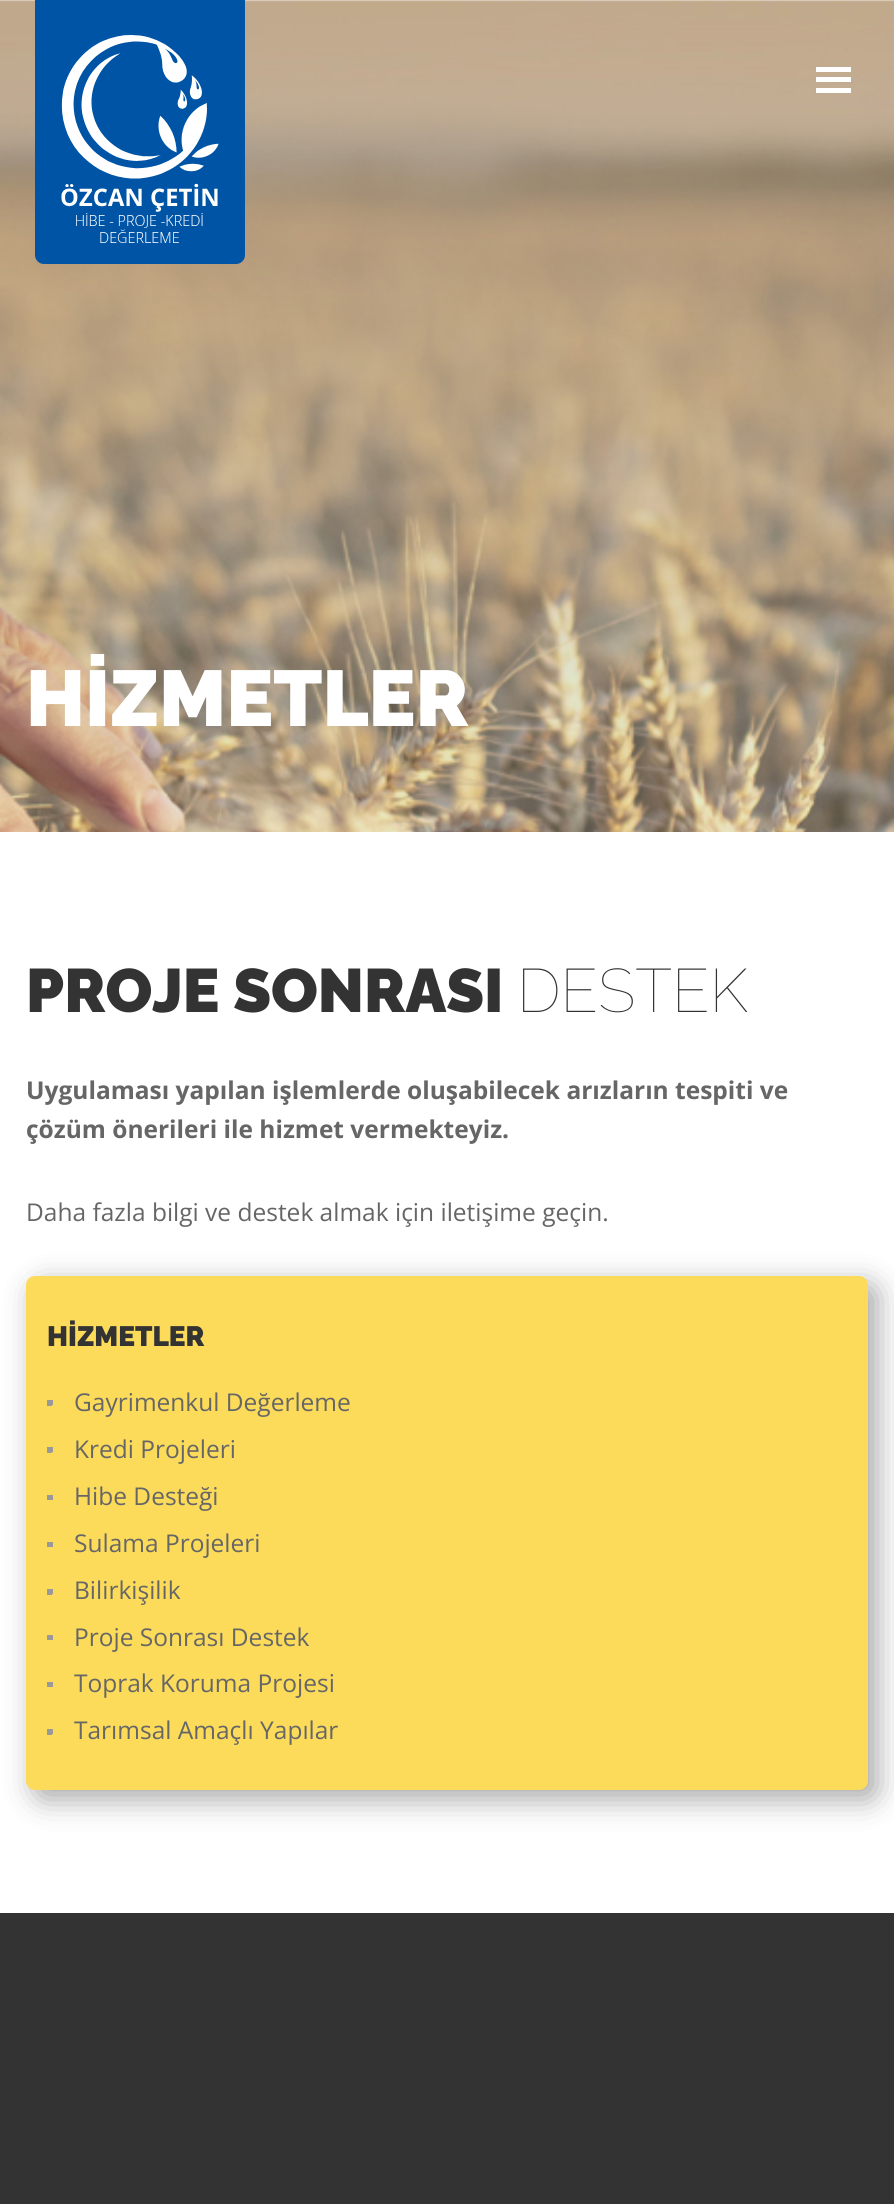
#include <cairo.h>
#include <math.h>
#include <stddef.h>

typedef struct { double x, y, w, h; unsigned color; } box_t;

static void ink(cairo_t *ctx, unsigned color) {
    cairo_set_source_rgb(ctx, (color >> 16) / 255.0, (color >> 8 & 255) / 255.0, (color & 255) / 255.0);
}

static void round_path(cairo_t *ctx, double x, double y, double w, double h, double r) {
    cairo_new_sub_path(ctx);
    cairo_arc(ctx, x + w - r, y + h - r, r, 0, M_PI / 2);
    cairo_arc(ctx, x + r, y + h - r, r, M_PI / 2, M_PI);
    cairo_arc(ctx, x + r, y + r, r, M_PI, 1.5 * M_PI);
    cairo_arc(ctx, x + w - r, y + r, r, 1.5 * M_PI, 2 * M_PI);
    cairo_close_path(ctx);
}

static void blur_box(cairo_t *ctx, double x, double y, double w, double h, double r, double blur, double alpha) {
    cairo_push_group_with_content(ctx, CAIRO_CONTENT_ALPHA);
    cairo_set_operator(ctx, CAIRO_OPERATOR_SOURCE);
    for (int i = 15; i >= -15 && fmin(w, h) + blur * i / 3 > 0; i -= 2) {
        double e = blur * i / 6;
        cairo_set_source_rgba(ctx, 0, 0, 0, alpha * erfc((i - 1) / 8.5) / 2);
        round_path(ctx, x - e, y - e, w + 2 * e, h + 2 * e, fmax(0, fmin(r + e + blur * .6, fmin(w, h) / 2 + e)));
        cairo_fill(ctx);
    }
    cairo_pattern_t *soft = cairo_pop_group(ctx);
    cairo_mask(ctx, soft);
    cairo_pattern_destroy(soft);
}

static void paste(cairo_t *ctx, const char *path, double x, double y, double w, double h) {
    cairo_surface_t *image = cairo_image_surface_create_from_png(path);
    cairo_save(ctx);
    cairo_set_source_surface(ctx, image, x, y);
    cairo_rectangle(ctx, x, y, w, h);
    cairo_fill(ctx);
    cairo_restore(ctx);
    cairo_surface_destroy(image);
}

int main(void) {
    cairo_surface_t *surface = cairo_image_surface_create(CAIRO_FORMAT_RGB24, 894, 2204);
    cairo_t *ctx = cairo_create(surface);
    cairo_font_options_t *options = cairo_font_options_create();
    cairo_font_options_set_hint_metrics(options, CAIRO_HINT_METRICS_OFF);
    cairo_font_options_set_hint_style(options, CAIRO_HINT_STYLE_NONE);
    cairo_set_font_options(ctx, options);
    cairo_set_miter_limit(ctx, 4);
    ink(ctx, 0xFFFFFF);
    cairo_paint(ctx);
    paste(ctx, "media/2.png", 0, 0, 894, 832);
    ink(ctx, 0x0054A6);
    cairo_new_path(ctx);
    cairo_move_to(ctx, 35, 0);
    cairo_line_to(ctx, 245, 0);
    cairo_line_to(ctx, 245, 255);
    cairo_curve_to(ctx, 245, 260, 241, 264, 236, 264);
    cairo_line_to(ctx, 44, 264);
    cairo_curve_to(ctx, 39, 264, 35, 260, 35, 255);
    cairo_close_path(ctx);
    cairo_fill(ctx);
    paste(ctx, "media/1.png", 61, 35, 158, 208);
    {
        static const box_t items[] = {
            {816, 77, 35, 5, 0xFFFFFF},
            {816, 67, 35, 5, 0xFFFFFF},
            {816, 88, 35, 5, 0xFFFFFF},
        };
        for (size_t i = 0; i < sizeof items / sizeof *items; i++) {
            ink(ctx, items[i].color);
            cairo_rectangle(ctx, items[i].x, items[i].y, items[i].w, items[i].h);
            cairo_fill(ctx);
        }
    }
    cairo_select_font_face(ctx, "Raleway Black", CAIRO_FONT_SLANT_NORMAL, CAIRO_FONT_WEIGHT_NORMAL);
    cairo_set_font_size(ctx, 78.75);
    cairo_move_to(ctx, 26, 726);
    cairo_show_text(ctx, "HİZMETLER");
    cairo_set_font_size(ctx, 61.25);
    ink(ctx, 0x333333);
    cairo_move_to(ctx, 26, 1012);
    cairo_show_text(ctx, "PROJE SONRASI");
    cairo_select_font_face(ctx, "Raleway Thin", CAIRO_FONT_SLANT_NORMAL, CAIRO_FONT_WEIGHT_NORMAL);
    cairo_move_to(ctx, 517, 1012);
    cairo_show_text(ctx, "DESTEK");
    cairo_select_font_face(ctx, "Open Sans", CAIRO_FONT_SLANT_NORMAL, CAIRO_FONT_WEIGHT_BOLD);
    cairo_set_font_size(ctx, 24.5);
    ink(ctx, 0x666666);
    cairo_move_to(ctx, 26, 1099);
    cairo_show_text(ctx, "Uygulaması yapılan işlemlerde oluşabilecek arızların tespiti ve");
    cairo_move_to(ctx, 26, 1138);
    cairo_show_text(ctx, "çözüm önerileri ile hizmet vermekteyiz.");
    cairo_select_font_face(ctx, "Open Sans", CAIRO_FONT_SLANT_NORMAL, CAIRO_FONT_WEIGHT_NORMAL);
    cairo_move_to(ctx, 26, 1221);
    cairo_show_text(ctx, "Daha fazla bilgi ve destek almak için iletişime geçin.");
    ink(ctx, 0x000001);
    blur_box(ctx, 35, 1285, 842, 514, 9, 15, 0.35);
    ink(ctx, 0xFCDB5A);
    round_path(ctx, 26, 1276, 842, 514, 9);
    cairo_fill(ctx);
    cairo_select_font_face(ctx, "Raleway Black", CAIRO_FONT_SLANT_NORMAL, CAIRO_FONT_WEIGHT_NORMAL);
    cairo_set_font_size(ctx, 28);
    ink(ctx, 0x333333);
    cairo_move_to(ctx, 47, 1346);
    cairo_show_text(ctx, "HİZMETLER");
    {
        static const box_t items[] = {
            {47, 1400, 5, 4, 0x999999},
            {51, 1400, 2, 5, 0x999999},
            {47, 1404, 5, 2, 0x999999},
        };
        for (size_t i = 0; i < sizeof items / sizeof *items; i++) {
            ink(ctx, items[i].color);
            cairo_rectangle(ctx, items[i].x, items[i].y, items[i].w, items[i].h);
            cairo_fill(ctx);
        }
    }
    cairo_select_font_face(ctx, "Open Sans", CAIRO_FONT_SLANT_NORMAL, CAIRO_FONT_WEIGHT_NORMAL);
    cairo_set_font_size(ctx, 24.5);
    ink(ctx, 0x666666);
    cairo_move_to(ctx, 74, 1411);
    cairo_show_text(ctx, "Gayrimenkul Değerleme");
    {
        static const box_t items[] = {
            {47, 1447, 5, 4, 0x999999},
            {51, 1447, 2, 5, 0x999999},
            {47, 1451, 5, 2, 0x999999},
        };
        for (size_t i = 0; i < sizeof items / sizeof *items; i++) {
            ink(ctx, items[i].color);
            cairo_rectangle(ctx, items[i].x, items[i].y, items[i].w, items[i].h);
            cairo_fill(ctx);
        }
    }
    ink(ctx, 0x666666);
    cairo_move_to(ctx, 74, 1458);
    cairo_show_text(ctx, "Kredi Projeleri");
    {
        static const box_t items[] = {
            {47, 1495, 5, 3, 0x999999},
            {51, 1495, 2, 5, 0x999999},
            {47, 1498, 5, 2, 0x999999},
        };
        for (size_t i = 0; i < sizeof items / sizeof *items; i++) {
            ink(ctx, items[i].color);
            cairo_rectangle(ctx, items[i].x, items[i].y, items[i].w, items[i].h);
            cairo_fill(ctx);
        }
    }
    ink(ctx, 0x666666);
    cairo_move_to(ctx, 74, 1505);
    cairo_show_text(ctx, "Hibe Desteği");
    {
        static const box_t items[] = {
            {47, 1542, 5, 3, 0x999999},
            {51, 1542, 2, 5, 0x999999},
            {47, 1545, 5, 2, 0x999999},
        };
        for (size_t i = 0; i < sizeof items / sizeof *items; i++) {
            ink(ctx, items[i].color);
            cairo_rectangle(ctx, items[i].x, items[i].y, items[i].w, items[i].h);
            cairo_fill(ctx);
        }
    }
    ink(ctx, 0x666666);
    cairo_move_to(ctx, 74, 1552);
    cairo_show_text(ctx, "Sulama Projeleri");
    {
        static const box_t items[] = {
            {47, 1589, 5, 4, 0x999999},
            {51, 1589, 2, 5, 0x999999},
            {47, 1593, 5, 2, 0x999999},
        };
        for (size_t i = 0; i < sizeof items / sizeof *items; i++) {
            ink(ctx, items[i].color);
            cairo_rectangle(ctx, items[i].x, items[i].y, items[i].w, items[i].h);
            cairo_fill(ctx);
        }
    }
    ink(ctx, 0x666666);
    cairo_move_to(ctx, 74, 1599);
    cairo_show_text(ctx, "Bilirkişilik");
    {
        static const box_t items[] = {
            {47, 1635, 5, 3, 0x999999},
            {51, 1635, 2, 5, 0x999999},
            {47, 1638, 5, 2, 0x999999},
        };
        for (size_t i = 0; i < sizeof items / sizeof *items; i++) {
            ink(ctx, items[i].color);
            cairo_rectangle(ctx, items[i].x, items[i].y, items[i].w, items[i].h);
            cairo_fill(ctx);
        }
    }
    ink(ctx, 0x666666);
    cairo_move_to(ctx, 74, 1646);
    cairo_show_text(ctx, "Proje Sonrası Destek");
    {
        static const box_t items[] = {
            {47, 1682, 5, 3, 0x999999},
            {51, 1682, 2, 5, 0x999999},
            {47, 1685, 5, 2, 0x999999},
        };
        for (size_t i = 0; i < sizeof items / sizeof *items; i++) {
            ink(ctx, items[i].color);
            cairo_rectangle(ctx, items[i].x, items[i].y, items[i].w, items[i].h);
            cairo_fill(ctx);
        }
    }
    ink(ctx, 0x666666);
    cairo_move_to(ctx, 74, 1692);
    cairo_show_text(ctx, "Toprak Koruma Projesi");
    {
        static const box_t items[] = {
            {47, 1729, 5, 4, 0x999999},
            {51, 1729, 2, 5, 0x999999},
            {47, 1733, 5, 2, 0x999999},
        };
        for (size_t i = 0; i < sizeof items / sizeof *items; i++) {
            ink(ctx, items[i].color);
            cairo_rectangle(ctx, items[i].x, items[i].y, items[i].w, items[i].h);
            cairo_fill(ctx);
        }
    }
    ink(ctx, 0x666666);
    cairo_move_to(ctx, 74, 1739);
    cairo_show_text(ctx, "Tarımsal Amaçlı Yapılar");
    ink(ctx, 0x333333);
    cairo_rectangle(ctx, 0, 1913, 894, 291);
    cairo_fill(ctx);
    cairo_surface_write_to_png(surface, "image.png");
    cairo_font_options_destroy(options);
    cairo_destroy(ctx);
    cairo_surface_destroy(surface);
    return 0;
}
